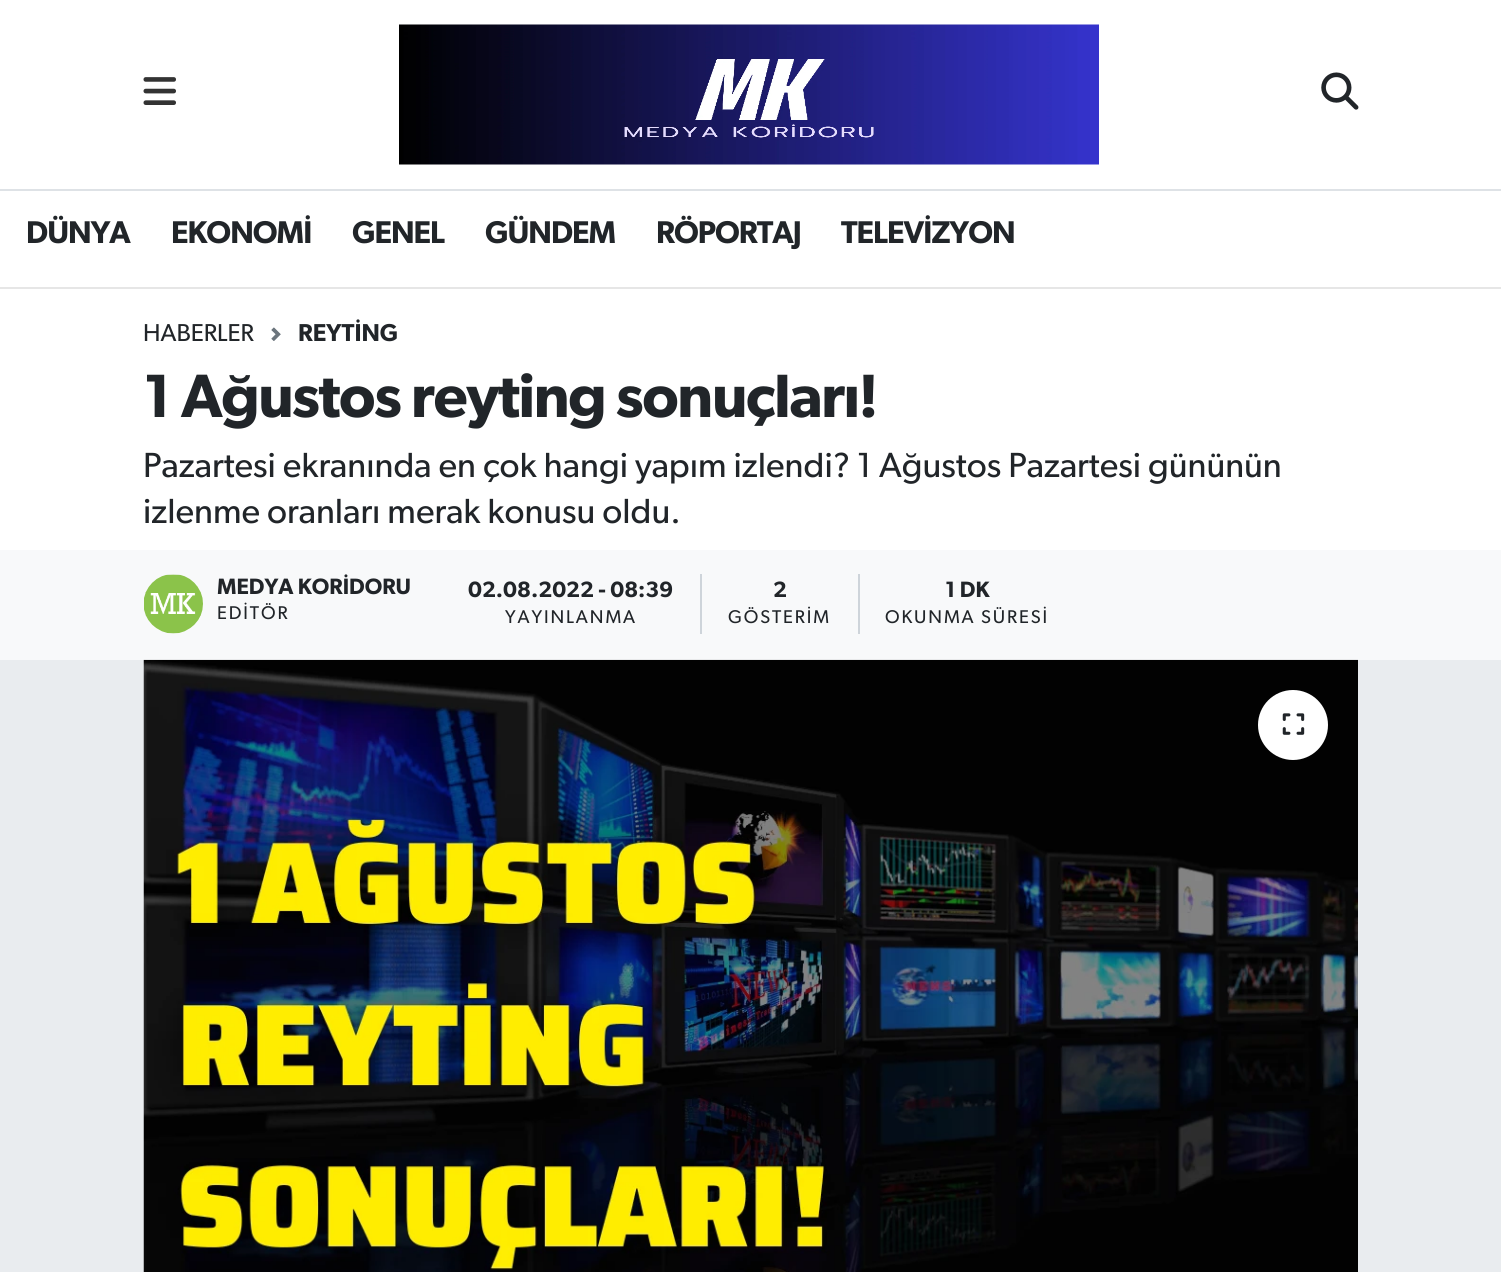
#include <cairo.h>
#include <math.h>
#include <stddef.h>

typedef struct { double x, y; const char *s; } line_t;

static void ink(cairo_t *ctx, unsigned color) {
    cairo_set_source_rgb(ctx, (color >> 16) / 255.0, (color >> 8 & 255) / 255.0, (color & 255) / 255.0);
}

static void write_spaced(cairo_t *ctx, double x, double y, const char *s, double letter, double word) {
    cairo_move_to(ctx, x, y);
    while (*s) {
        char ch[5] = {0};
        int n = 0;
        do ch[n++] = *s++; while ((*s & 0xC0) == 0x80);
        cairo_show_text(ctx, ch);
        cairo_rel_move_to(ctx, letter + word * (*ch == ' '), 0);
    }
}

static void paste(cairo_t *ctx, const char *path, double x, double y, double w, double h) {
    cairo_surface_t *image = cairo_image_surface_create_from_png(path);
    cairo_save(ctx);
    cairo_set_source_surface(ctx, image, x, y);
    cairo_rectangle(ctx, x, y, w, h);
    cairo_fill(ctx);
    cairo_restore(ctx);
    cairo_surface_destroy(image);
}

int main(void) {
    cairo_surface_t *surface = cairo_image_surface_create(CAIRO_FORMAT_RGB24, 1501, 1272);
    cairo_t *ctx = cairo_create(surface);
    cairo_font_options_t *options = cairo_font_options_create();
    cairo_font_options_set_hint_metrics(options, CAIRO_HINT_METRICS_OFF);
    cairo_font_options_set_hint_style(options, CAIRO_HINT_STYLE_NONE);
    cairo_set_font_options(ctx, options);
    cairo_set_miter_limit(ctx, 4);
    ink(ctx, 0xE9ECEF);
    cairo_paint(ctx);
    ink(ctx, 0xFFFFFF);
    cairo_rectangle(ctx, 0, 0, 1501, 189);
    cairo_fill(ctx);
    ink(ctx, 0xDEE2E6);
    cairo_rectangle(ctx, 0, 189, 1501, 2);
    cairo_fill(ctx);
    paste(ctx, "media/1.png", 143, 77, 33, 28);
    paste(ctx, "media/2.png", 399, 24, 700, 141);
    paste(ctx, "media/3.png", 1321, 72, 38, 38);
    ink(ctx, 0xFFFFFF);
    cairo_rectangle(ctx, 0, 191, 1501, 96);
    cairo_fill(ctx);
    ink(ctx, 0xE6E6E6);
    cairo_rectangle(ctx, 0, 287, 1501, 2);
    cairo_fill(ctx);
    cairo_select_font_face(ctx, "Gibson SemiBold", CAIRO_FONT_SLANT_NORMAL, CAIRO_FONT_WEIGHT_NORMAL);
    cairo_set_font_size(ctx, 31.5);
    ink(ctx, 0x212529);
    {
        static const line_t items[] = {
            {26, 243, "DÜNYA"},
            {171, 243, "EKONOMİ"},
            {352, 243, "GENEL"},
            {485, 243, "GÜNDEM"},
            {656, 243, "RÖPORTAJ"},
            {841, 243, "TELEVİZYON"},
        };
        for (size_t i = 0; i < sizeof items / sizeof *items; i++) {
            write_spaced(ctx, items[i].x, items[i].y, items[i].s, -1, 0);
        }
    }
    ink(ctx, 0xFFFFFF);
    cairo_rectangle(ctx, 0, 289, 1501, 261);
    cairo_fill(ctx);
    cairo_select_font_face(ctx, "Gibson", CAIRO_FONT_SLANT_NORMAL, CAIRO_FONT_WEIGHT_NORMAL);
    cairo_set_font_size(ctx, 24.5);
    ink(ctx, 0x212529);
    cairo_move_to(ctx, 143, 341);
    cairo_show_text(ctx, "HABERLER");
    paste(ctx, "media/4.png", 271, 327, 10, 14);
    cairo_select_font_face(ctx, "Gibson SemiBold", CAIRO_FONT_SLANT_NORMAL, CAIRO_FONT_WEIGHT_NORMAL);
    cairo_move_to(ctx, 298, 341);
    cairo_show_text(ctx, "REYTİNG");
    cairo_set_font_size(ctx, 61.25);
    write_spaced(ctx, 143, 417, "1 Ağustos reyting sonuçları!", -1.4, 0);
    cairo_select_font_face(ctx, "Gibson", CAIRO_FONT_SLANT_NORMAL, CAIRO_FONT_WEIGHT_NORMAL);
    cairo_set_font_size(ctx, 35);
    cairo_move_to(ctx, 143, 477);
    cairo_show_text(ctx, "Pazartesi ekranında en çok hangi yapım izlendi? 1 Ağustos Pazartesi gününün");
    cairo_move_to(ctx, 143, 523);
    cairo_show_text(ctx, "izlenme oranları merak konusu oldu.");
    ink(ctx, 0xF8F9FA);
    cairo_rectangle(ctx, 0, 550, 1501, 110);
    cairo_fill(ctx);
    paste(ctx, "media/5.png", 144, 574, 59, 60);
    cairo_select_font_face(ctx, "Gibson SemiBold", CAIRO_FONT_SLANT_NORMAL, CAIRO_FONT_WEIGHT_NORMAL);
    cairo_set_font_size(ctx, 22.25);
    ink(ctx, 0x212529);
    cairo_move_to(ctx, 217, 594);
    cairo_show_text(ctx, "MEDYA KORİDORU");
    cairo_select_font_face(ctx, "Gibson", CAIRO_FONT_SLANT_NORMAL, CAIRO_FONT_WEIGHT_NORMAL);
    cairo_set_font_size(ctx, 18.5);
    write_spaced(ctx, 217, 619, "EDİTÖR", 1.9, 0);
    ink(ctx, 0xCED4DA);
    cairo_rectangle(ctx, 700, 574, 2, 60);
    cairo_fill(ctx);
    cairo_select_font_face(ctx, "Gibson SemiBold", CAIRO_FONT_SLANT_NORMAL, CAIRO_FONT_WEIGHT_NORMAL);
    cairo_set_font_size(ctx, 22.25);
    ink(ctx, 0x212529);
    cairo_move_to(ctx, 468, 597);
    cairo_show_text(ctx, "02.08.2022 - 08:39");
    cairo_select_font_face(ctx, "Gibson", CAIRO_FONT_SLANT_NORMAL, CAIRO_FONT_WEIGHT_NORMAL);
    cairo_set_font_size(ctx, 18.5);
    write_spaced(ctx, 505, 623, "YAYINLANMA", 1.9, 0);
    ink(ctx, 0xCED4DA);
    cairo_rectangle(ctx, 858, 574, 2, 60);
    cairo_fill(ctx);
    cairo_select_font_face(ctx, "Gibson SemiBold", CAIRO_FONT_SLANT_NORMAL, CAIRO_FONT_WEIGHT_NORMAL);
    cairo_set_font_size(ctx, 22.25);
    ink(ctx, 0x212529);
    cairo_move_to(ctx, 773, 597);
    cairo_show_text(ctx, "2");
    cairo_select_font_face(ctx, "Gibson", CAIRO_FONT_SLANT_NORMAL, CAIRO_FONT_WEIGHT_NORMAL);
    cairo_set_font_size(ctx, 18.5);
    write_spaced(ctx, 728, 623, "GÖSTERİM", 1.9, 0);
    cairo_select_font_face(ctx, "Gibson SemiBold", CAIRO_FONT_SLANT_NORMAL, CAIRO_FONT_WEIGHT_NORMAL);
    cairo_set_font_size(ctx, 22.25);
    cairo_move_to(ctx, 945, 597);
    cairo_show_text(ctx, "1 DK");
    cairo_select_font_face(ctx, "Gibson", CAIRO_FONT_SLANT_NORMAL, CAIRO_FONT_WEIGHT_NORMAL);
    cairo_set_font_size(ctx, 18.5);
    write_spaced(ctx, 885, 623, "OKUNMA SÜRESİ", 1.9, 0);
    paste(ctx, "media/6.png", 143, 659, 1215, 613);
    ink(ctx, 0xFFFFFF);
    cairo_arc(ctx, 1293, 725, 35, 0, 2 * M_PI);
    cairo_fill(ctx);
    paste(ctx, "media/7.png", 1282, 713, 23, 22);
    cairo_surface_write_to_png(surface, "image.png");
    cairo_font_options_destroy(options);
    cairo_destroy(ctx);
    cairo_surface_destroy(surface);
    return 0;
}
